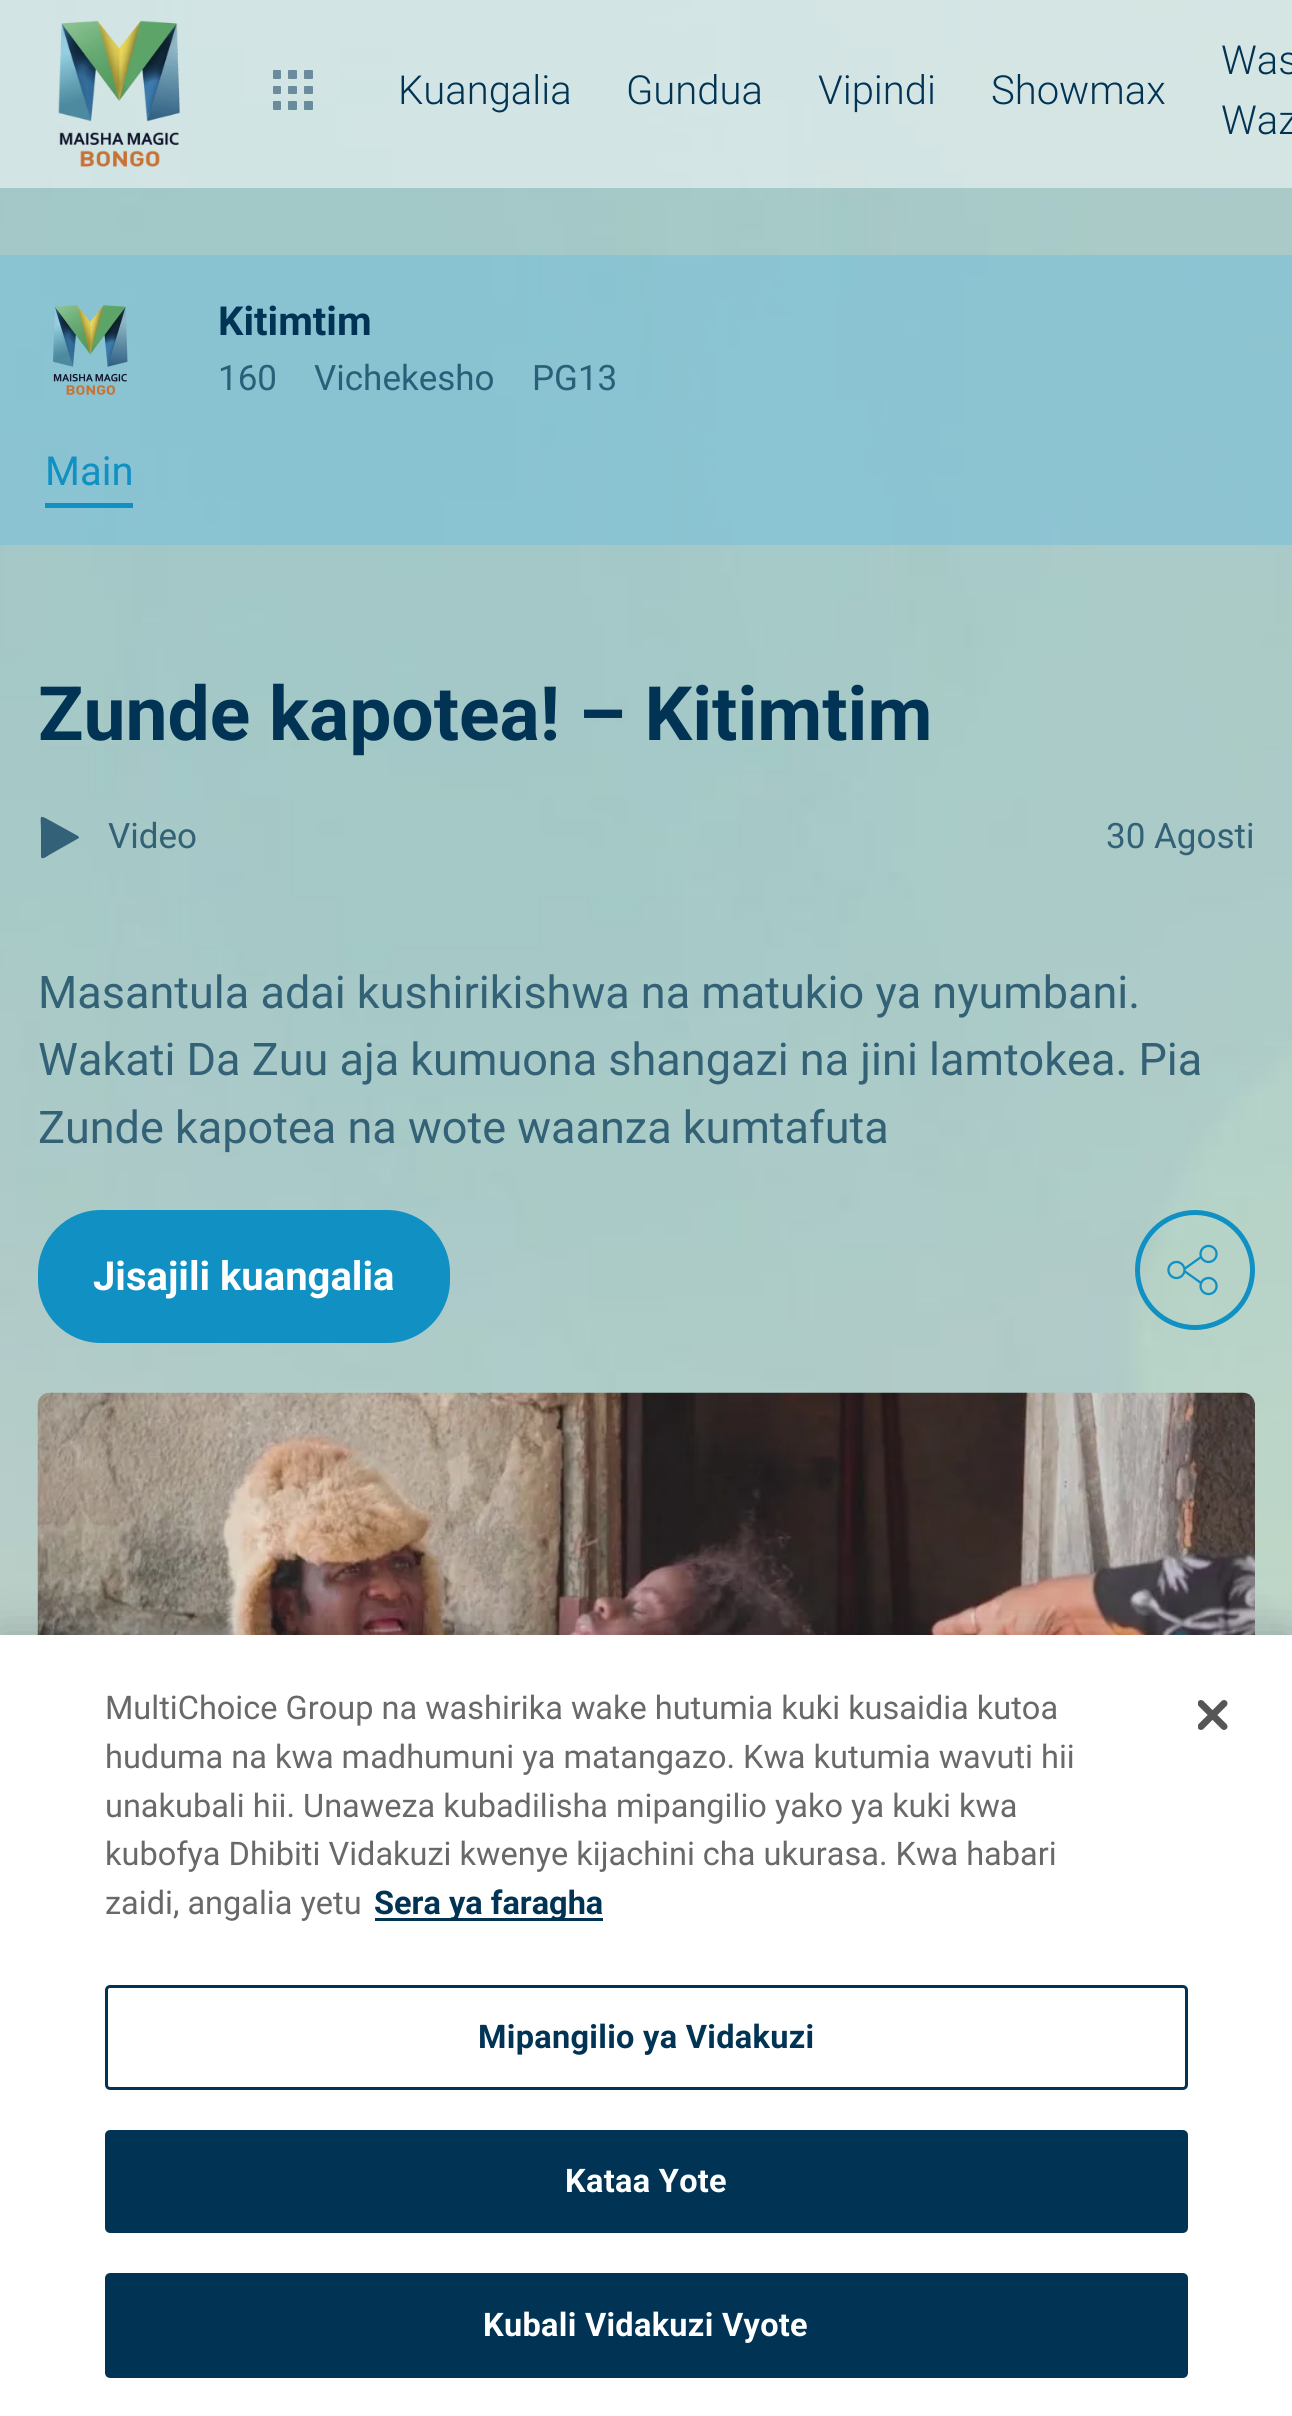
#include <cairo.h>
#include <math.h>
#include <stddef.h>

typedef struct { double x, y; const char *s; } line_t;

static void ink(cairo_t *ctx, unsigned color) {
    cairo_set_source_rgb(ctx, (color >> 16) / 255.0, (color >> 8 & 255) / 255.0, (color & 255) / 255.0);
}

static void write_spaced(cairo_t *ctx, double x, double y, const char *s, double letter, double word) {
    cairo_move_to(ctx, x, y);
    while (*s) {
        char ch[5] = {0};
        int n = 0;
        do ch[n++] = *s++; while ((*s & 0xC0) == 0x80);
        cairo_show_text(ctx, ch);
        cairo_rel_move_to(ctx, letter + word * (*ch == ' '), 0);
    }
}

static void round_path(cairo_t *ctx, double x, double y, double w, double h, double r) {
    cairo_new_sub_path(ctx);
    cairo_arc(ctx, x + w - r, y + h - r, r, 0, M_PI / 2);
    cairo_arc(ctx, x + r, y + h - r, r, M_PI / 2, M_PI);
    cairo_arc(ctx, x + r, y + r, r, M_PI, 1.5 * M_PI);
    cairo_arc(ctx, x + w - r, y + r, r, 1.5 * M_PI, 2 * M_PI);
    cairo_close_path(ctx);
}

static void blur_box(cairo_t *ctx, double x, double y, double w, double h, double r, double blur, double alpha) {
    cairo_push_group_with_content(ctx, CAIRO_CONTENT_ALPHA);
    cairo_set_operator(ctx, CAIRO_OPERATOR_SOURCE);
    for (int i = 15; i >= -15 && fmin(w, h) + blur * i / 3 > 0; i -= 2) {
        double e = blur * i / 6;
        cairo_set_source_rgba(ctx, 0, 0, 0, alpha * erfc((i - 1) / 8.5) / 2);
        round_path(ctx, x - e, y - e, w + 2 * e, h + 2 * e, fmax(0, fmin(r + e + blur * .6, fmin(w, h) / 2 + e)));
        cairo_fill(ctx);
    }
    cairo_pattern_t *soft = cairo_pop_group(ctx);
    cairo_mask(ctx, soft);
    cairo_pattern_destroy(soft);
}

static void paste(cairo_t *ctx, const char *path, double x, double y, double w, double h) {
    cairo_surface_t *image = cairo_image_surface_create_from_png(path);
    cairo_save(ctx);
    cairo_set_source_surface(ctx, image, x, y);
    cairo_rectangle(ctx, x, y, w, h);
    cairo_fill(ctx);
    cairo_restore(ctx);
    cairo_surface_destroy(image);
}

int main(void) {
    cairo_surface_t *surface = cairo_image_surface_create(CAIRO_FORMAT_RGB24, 1292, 2416);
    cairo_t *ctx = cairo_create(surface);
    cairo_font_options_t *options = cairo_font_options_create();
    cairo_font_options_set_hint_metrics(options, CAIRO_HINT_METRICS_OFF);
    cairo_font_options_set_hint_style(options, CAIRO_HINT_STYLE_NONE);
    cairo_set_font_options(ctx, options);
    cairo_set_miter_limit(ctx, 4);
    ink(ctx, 0xFFFFFF);
    cairo_paint(ctx);
    paste(ctx, "media/1.png", 0, 0, 1292, 1635);
    cairo_set_source_rgba(ctx, 1, 1, 1, 0.5);
    cairo_rectangle(ctx, 0, 0, 1292, 188);
    cairo_fill(ctx);
    paste(ctx, "media/2.png", 58, 20, 122, 147);
    paste(ctx, "media/3.png", 273, 70, 40, 40);
    cairo_select_font_face(ctx, "Roboto Light", CAIRO_FONT_SLANT_NORMAL, CAIRO_FONT_WEIGHT_NORMAL);
    cairo_set_font_size(ctx, 40);
    ink(ctx, 0x013454);
    {
        static const line_t items[] = {
            {398, 104, "Kuangalia"},
            {626, 104, "Gundua"},
            {818, 104, "Vipindi"},
            {991, 104, "Showmax"},
            {1221, 74, "Was"},
            {1221, 134, "Waz"},
        };
        for (size_t i = 0; i < sizeof items / sizeof *items; i++) {
            cairo_move_to(ctx, items[i].x, items[i].y);
            cairo_show_text(ctx, items[i].s);
        }
    }
    cairo_set_source_rgba(ctx, 1, 1, 1, 0.3);
    cairo_rectangle(ctx, 0, 255, 1292, 290);
    cairo_fill(ctx);
    cairo_set_source_rgba(ctx, 0.063, 0.565, 0.765, 0.3);
    cairo_rectangle(ctx, 0, 255, 1292, 290);
    cairo_fill(ctx);
    paste(ctx, "media/4.png", 53, 305, 75, 90);
    cairo_select_font_face(ctx, "Roboto", CAIRO_FONT_SLANT_NORMAL, CAIRO_FONT_WEIGHT_BOLD);
    ink(ctx, 0x013454);
    cairo_move_to(ctx, 218, 335);
    cairo_show_text(ctx, "Kitimtim");
    cairo_select_font_face(ctx, "Roboto", CAIRO_FONT_SLANT_NORMAL, CAIRO_FONT_WEIGHT_NORMAL);
    cairo_set_font_size(ctx, 35);
    ink(ctx, 0x2A5F7A);
    {
        static const line_t items[] = {
            {218, 390, "160"},
            {314, 390, "Vichekesho"},
            {532, 390, "PG13"},
        };
        for (size_t i = 0; i < sizeof items / sizeof *items; i++) {
            cairo_move_to(ctx, items[i].x, items[i].y);
            cairo_show_text(ctx, items[i].s);
        }
    }
    ink(ctx, 0x1090C3);
    cairo_rectangle(ctx, 45, 503, 88, 5);
    cairo_fill(ctx);
    cairo_set_font_size(ctx, 40);
    cairo_move_to(ctx, 45, 485);
    cairo_show_text(ctx, "Main");
    cairo_select_font_face(ctx, "Roboto", CAIRO_FONT_SLANT_NORMAL, CAIRO_FONT_WEIGHT_BOLD);
    cairo_set_font_size(ctx, 75);
    ink(ctx, 0x013454);
    cairo_move_to(ctx, 38, 740);
    cairo_show_text(ctx, "Zunde kapotea! – Kitimtim");
    ink(ctx, 0x336177);
    cairo_new_path(ctx);
    cairo_move_to(ctx, 78, 836);
    cairo_line_to(ctx, 49, 820);
    cairo_curve_to(ctx, 38, 814, 41, 816, 41, 831);
    cairo_line_to(ctx, 41, 857);
    cairo_curve_to(ctx, 42, 860, 46, 857, 49, 855);
    cairo_line_to(ctx, 79, 838);
    cairo_curve_to(ctx, 79, 838, 79, 837, 78, 836);
    cairo_close_path(ctx);
    cairo_fill(ctx);
    cairo_select_font_face(ctx, "Roboto", CAIRO_FONT_SLANT_NORMAL, CAIRO_FONT_WEIGHT_NORMAL);
    cairo_set_font_size(ctx, 35);
    ink(ctx, 0x336176);
    cairo_move_to(ctx, 108, 848);
    cairo_show_text(ctx, "Video");
    cairo_move_to(ctx, 1106, 848);
    cairo_show_text(ctx, "30 Agosti");
    cairo_set_font_size(ctx, 45);
    {
        static const line_t items[] = {
            {38, 1008, "Masantula adai kushirikishwa na matukio ya nyumbani."},
            {38, 1075, "Wakati Da Zuu aja kumuona shangazi na jini lamtokea. Pia"},
            {38, 1143, "Zunde kapotea na wote waanza kumtafuta"},
        };
        for (size_t i = 0; i < sizeof items / sizeof *items; i++) {
            cairo_move_to(ctx, items[i].x, items[i].y);
            cairo_show_text(ctx, items[i].s);
        }
    }
    ink(ctx, 0x1090C3);
    round_path(ctx, 40.5, 1212.5, 407, 128, 60.5);
    cairo_fill_preserve(ctx);
    cairo_set_line_width(ctx, 5);
    cairo_stroke(ctx);
    cairo_select_font_face(ctx, "Roboto", CAIRO_FONT_SLANT_NORMAL, CAIRO_FONT_WEIGHT_BOLD);
    cairo_set_font_size(ctx, 40);
    ink(ctx, 0xFFFFFF);
    cairo_move_to(ctx, 93, 1290);
    cairo_show_text(ctx, "Jisajili kuangalia");
    cairo_new_path(ctx);
    cairo_arc(ctx, 1195, 1270, 57.5, 0, 2 * M_PI);
    ink(ctx, 0x1090C3);
    cairo_stroke(ctx);
    paste(ctx, "media/5.png", 1167, 1244, 51, 52);
    paste(ctx, "media/6.png", 37, 1392, 1218, 243);
    ink(ctx, 0x000000);
    blur_box(ctx, 0, 1635, 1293, 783, 0, 22.5, 0.2);
    ink(ctx, 0xFFFFFF);
    cairo_rectangle(ctx, 0, 1635, 1292, 781);
    cairo_fill(ctx);
    cairo_select_font_face(ctx, "Roboto", CAIRO_FONT_SLANT_NORMAL, CAIRO_FONT_WEIGHT_NORMAL);
    cairo_set_font_size(ctx, 32.5);
    ink(ctx, 0x696969);
    {
        static const line_t items[] = {
            {105, 1719, "MultiChoice Group na washirika wake hutumia kuki kusaidia kutoa"},
            {105, 1768, "huduma na kwa madhumuni ya matangazo. Kwa kutumia wavuti hii"},
            {105, 1817, "unakubali hii. Unaweza kubadilisha mipangilio yako ya kuki kwa"},
            {105, 1865, "kubofya Dhibiti Vidakuzi kwenye kijachini cha ukurasa. Kwa habari"},
            {105, 1914, "zaidi, angalia yetu"},
        };
        for (size_t i = 0; i < sizeof items / sizeof *items; i++) {
            cairo_move_to(ctx, items[i].x, items[i].y);
            cairo_show_text(ctx, items[i].s);
        }
    }
    ink(ctx, 0x013454);
    cairo_rectangle(ctx, 375, 1918, 228, 3);
    cairo_fill(ctx);
    cairo_select_font_face(ctx, "Roboto", CAIRO_FONT_SLANT_NORMAL, CAIRO_FONT_WEIGHT_BOLD);
    cairo_move_to(ctx, 374, 1914);
    cairo_show_text(ctx, "Sera ya faragha");
    round_path(ctx, 106.5, 1986.5, 1080, 102, 3.5);
    cairo_set_line_width(ctx, 3);
    cairo_stroke(ctx);
    write_spaced(ctx, 478, 2048, "Mipangilio ya Vidakuzi", 0.3, 0);
    round_path(ctx, 106.5, 2131.5, 1080, 100, 3.5);
    cairo_fill_preserve(ctx);
    cairo_stroke(ctx);
    ink(ctx, 0xFFFFFF);
    write_spaced(ctx, 565, 2192, "Kataa Yote", 0.3, 0);
    ink(ctx, 0x013454);
    round_path(ctx, 106.5, 2274.5, 1080, 102, 3.5);
    cairo_fill_preserve(ctx);
    cairo_stroke(ctx);
    ink(ctx, 0xFFFFFF);
    write_spaced(ctx, 483, 2336, "Kubali Vidakuzi Vyote", 0.3, 0);
    paste(ctx, "media/7.png", 1198, 1700, 30, 30);
    cairo_surface_write_to_png(surface, "image.png");
    cairo_font_options_destroy(options);
    cairo_destroy(ctx);
    cairo_surface_destroy(surface);
    return 0;
}
